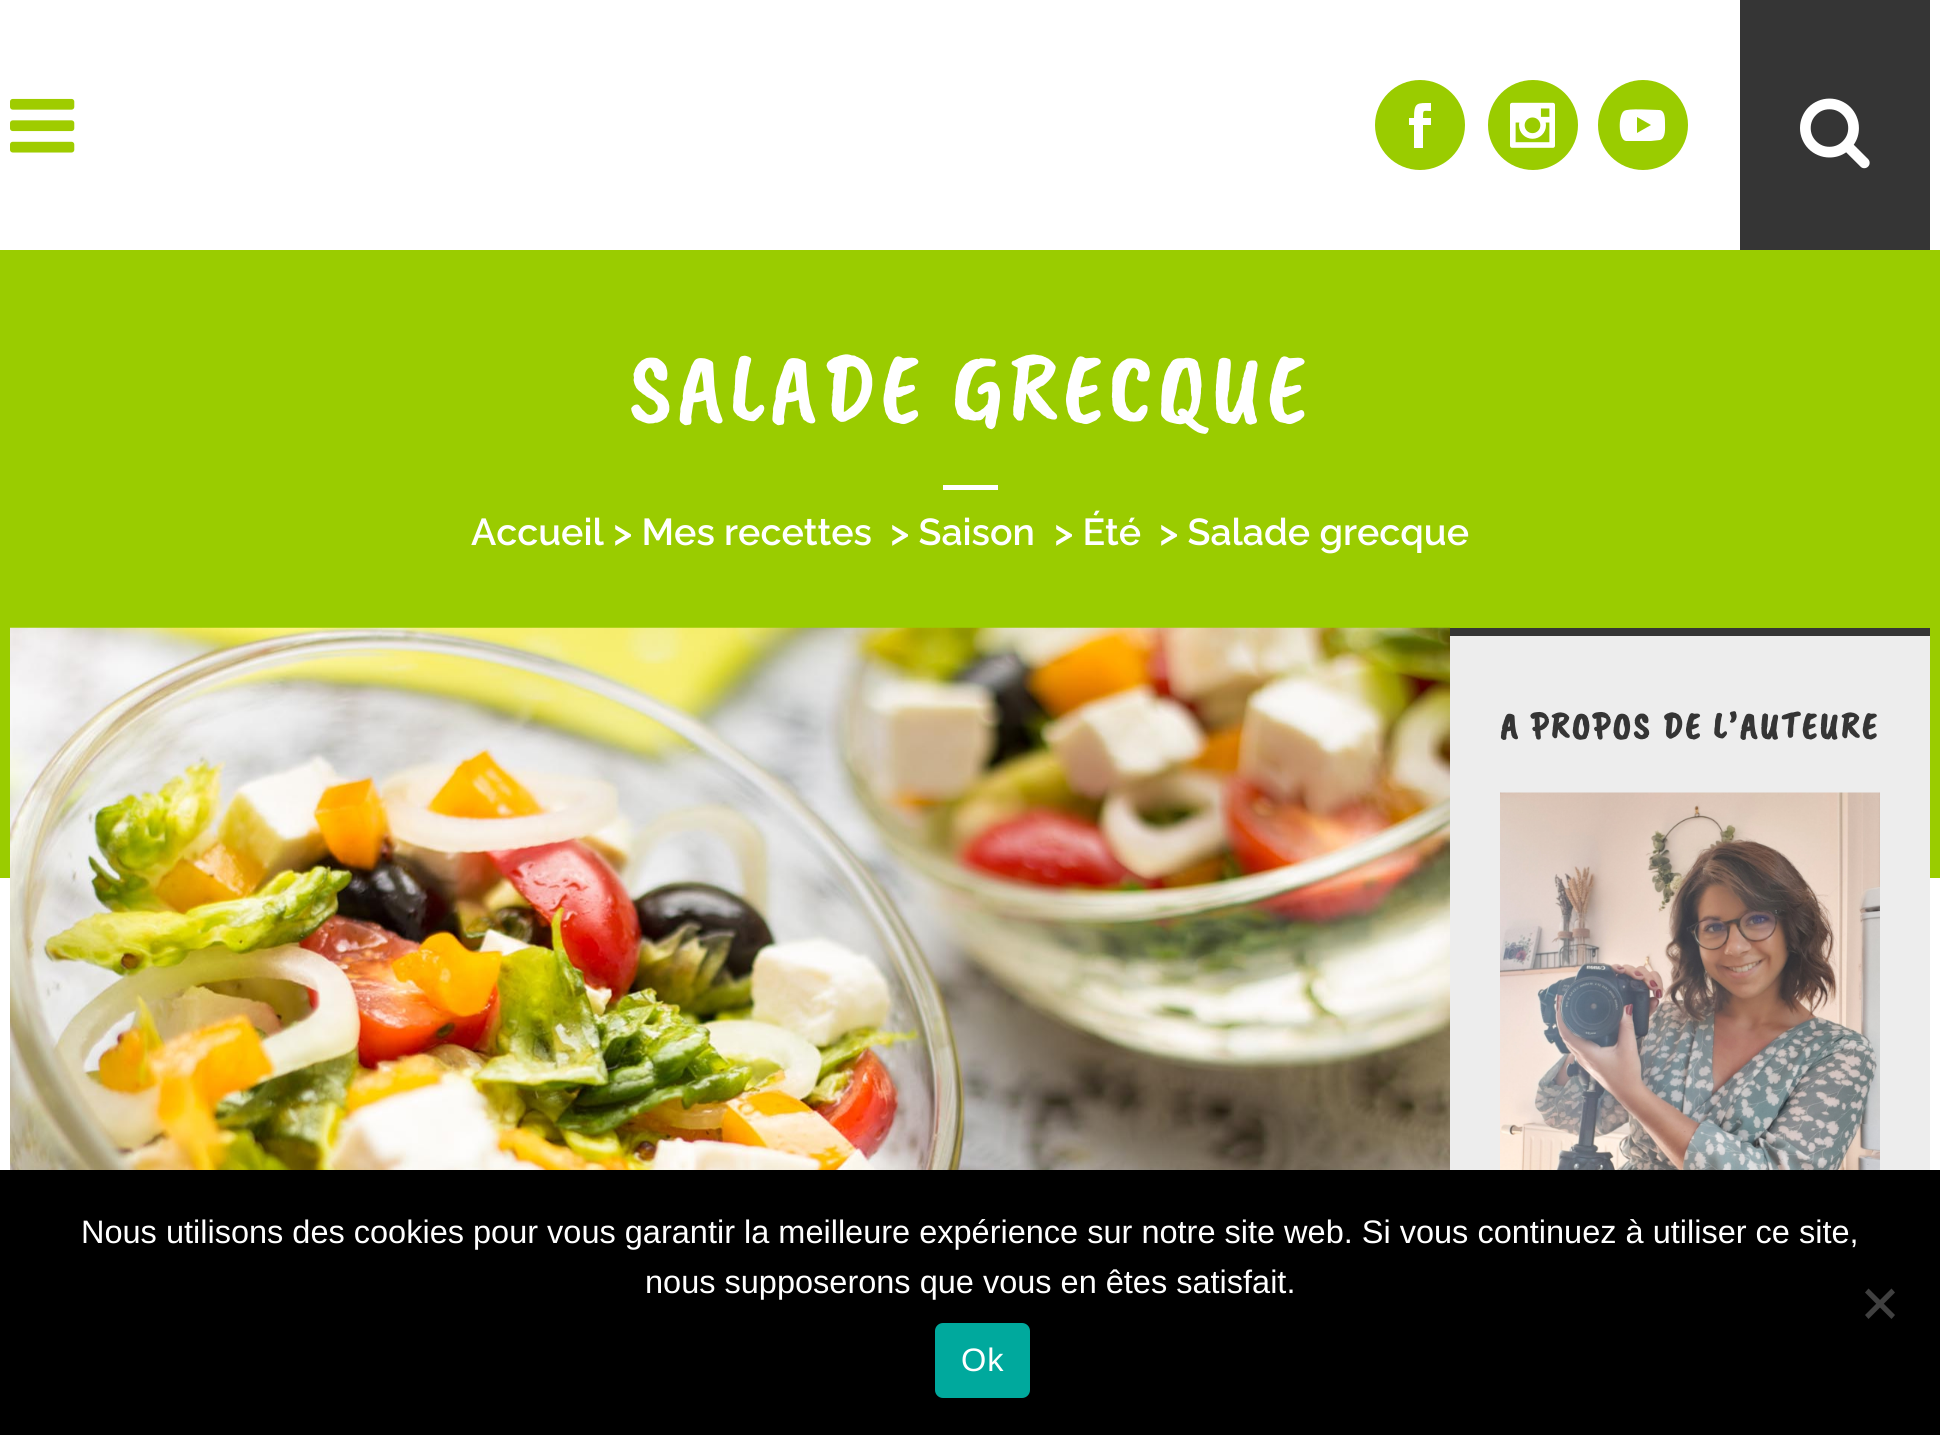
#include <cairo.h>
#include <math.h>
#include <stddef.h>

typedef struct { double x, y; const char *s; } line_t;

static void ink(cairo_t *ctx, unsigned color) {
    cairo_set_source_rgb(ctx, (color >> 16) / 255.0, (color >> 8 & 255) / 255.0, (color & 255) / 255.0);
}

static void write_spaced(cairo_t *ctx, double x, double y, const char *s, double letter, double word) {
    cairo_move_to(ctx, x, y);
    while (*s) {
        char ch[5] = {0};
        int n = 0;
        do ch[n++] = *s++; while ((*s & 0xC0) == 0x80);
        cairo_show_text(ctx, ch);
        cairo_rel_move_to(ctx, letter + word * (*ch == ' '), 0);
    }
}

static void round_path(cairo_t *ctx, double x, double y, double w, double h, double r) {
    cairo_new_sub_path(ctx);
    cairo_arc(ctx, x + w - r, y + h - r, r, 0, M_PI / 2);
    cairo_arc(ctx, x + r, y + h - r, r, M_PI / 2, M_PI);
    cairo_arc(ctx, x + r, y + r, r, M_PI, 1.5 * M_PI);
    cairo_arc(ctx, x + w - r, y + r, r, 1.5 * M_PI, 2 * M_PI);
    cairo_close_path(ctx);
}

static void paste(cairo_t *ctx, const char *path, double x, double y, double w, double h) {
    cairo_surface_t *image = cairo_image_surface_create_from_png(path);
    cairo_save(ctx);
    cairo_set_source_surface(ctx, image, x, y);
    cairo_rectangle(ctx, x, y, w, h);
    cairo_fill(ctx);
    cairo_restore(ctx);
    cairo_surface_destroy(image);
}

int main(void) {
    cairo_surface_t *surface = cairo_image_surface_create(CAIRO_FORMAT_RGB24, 1940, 1435);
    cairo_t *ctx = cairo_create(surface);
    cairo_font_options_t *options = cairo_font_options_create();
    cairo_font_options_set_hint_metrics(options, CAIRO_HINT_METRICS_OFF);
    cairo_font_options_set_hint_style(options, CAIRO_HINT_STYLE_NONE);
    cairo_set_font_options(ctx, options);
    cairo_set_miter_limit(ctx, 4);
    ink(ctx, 0xFFFFFF);
    cairo_paint(ctx);
    paste(ctx, "media/1.png", 10, 98, 65, 55);
    ink(ctx, 0x9ACC00);
    cairo_arc(ctx, 1420, 125, 45, 0, 2 * M_PI);
    cairo_fill(ctx);
    ink(ctx, 0xFFFFFF);
    cairo_new_path(ctx);
    cairo_move_to(ctx, 1414, 148);
    cairo_line_to(ctx, 1414, 125);
    cairo_line_to(ctx, 1409, 125);
    cairo_line_to(ctx, 1409, 118);
    cairo_line_to(ctx, 1414, 118);
    cairo_curve_to(ctx, 1414, 102, 1417, 103, 1431, 103);
    cairo_line_to(ctx, 1431, 111);
    cairo_curve_to(ctx, 1423, 111, 1423, 109, 1423, 118);
    cairo_line_to(ctx, 1431, 118);
    cairo_line_to(ctx, 1431, 125);
    cairo_line_to(ctx, 1423, 125);
    cairo_line_to(ctx, 1423, 148);
    cairo_close_path(ctx);
    cairo_fill(ctx);
    ink(ctx, 0x9ACC00);
    cairo_arc(ctx, 1533, 125, 45, 0, 2 * M_PI);
    cairo_fill(ctx);
    paste(ctx, "media/2.png", 1510, 102, 45, 46);
    cairo_arc(ctx, 1643, 125, 45, 0, 2 * M_PI);
    cairo_fill(ctx);
    ink(ctx, 0xFFFFFF);
    cairo_new_path(ctx);
    cairo_move_to(ctx, 1659, 110);
    cairo_curve_to(ctx, 1665, 110, 1665, 119, 1665, 123);
    cairo_curve_to(ctx, 1665, 128, 1666, 138, 1660, 140);
    cairo_line_to(ctx, 1651, 141);
    cairo_line_to(ctx, 1626, 141);
    cairo_curve_to(ctx, 1618, 140, 1618, 115, 1624, 111);
    cairo_curve_to(ctx, 1628, 108, 1653, 110, 1659, 110);
    cairo_close_path(ctx);
    cairo_move_to(ctx, 1637, 133);
    cairo_line_to(ctx, 1651, 125);
    cairo_line_to(ctx, 1637, 117);
    cairo_close_path(ctx);
    cairo_fill(ctx);
    ink(ctx, 0x353535);
    cairo_rectangle(ctx, 1740, 0, 190, 250);
    cairo_fill(ctx);
    paste(ctx, "media/3.png", 1800, 98, 70, 71);
    ink(ctx, 0x9ACC00);
    cairo_rectangle(ctx, 0, 250, 1940, 628);
    cairo_fill(ctx);
    cairo_select_font_face(ctx, "Caveat Brush", CAIRO_FONT_SLANT_NORMAL, CAIRO_FONT_WEIGHT_NORMAL);
    cairo_set_font_size(ctx, 100);
    ink(ctx, 0xFFFFFF);
    write_spaced(ctx, 629, 420, "SALADE GRECQUE", 5, 0);
    cairo_rectangle(ctx, 943, 485, 55, 5);
    cairo_fill(ctx);
    cairo_select_font_face(ctx, "Raleway SemiBold", CAIRO_FONT_SLANT_NORMAL, CAIRO_FONT_WEIGHT_NORMAL);
    cairo_set_font_size(ctx, 37.5);
    {
        static const line_t items[] = {
            {471, 545, "Accueil > Mes recettes"},
            {890, 545, "> Saison"},
            {1054, 545, "> Été"},
            {1159, 545, "> Salade grecque"},
        };
        for (size_t i = 0; i < sizeof items / sizeof *items; i++) {
            cairo_move_to(ctx, items[i].x, items[i].y);
            cairo_show_text(ctx, items[i].s);
        }
    }
    paste(ctx, "media/4.png", 10, 627, 1440, 543);
    ink(ctx, 0xEDEDED);
    cairo_rectangle(ctx, 1450, 636, 480, 534);
    cairo_fill(ctx);
    ink(ctx, 0x353535);
    cairo_rectangle(ctx, 1450, 628, 480, 8);
    cairo_fill(ctx);
    cairo_select_font_face(ctx, "Caveat Brush", CAIRO_FONT_SLANT_NORMAL, CAIRO_FONT_WEIGHT_BOLD);
    write_spaced(ctx, 1500, 738, "A PROPOS DE L’AUTEURE", 2.5, 0);
    paste(ctx, "media/5.png", 1500, 792, 380, 378);
    ink(ctx, 0x000000);
    cairo_rectangle(ctx, 0, 1170, 1940, 265);
    cairo_fill(ctx);
    cairo_select_font_face(ctx, "Liberation Sans", CAIRO_FONT_SLANT_NORMAL, CAIRO_FONT_WEIGHT_NORMAL);
    cairo_set_font_size(ctx, 32.5);
    ink(ctx, 0xFFFFFF);
    cairo_move_to(ctx, 81, 1243);
    cairo_show_text(ctx, "Nous utilisons des cookies pour vous garantir la meilleure expérience sur notre site web. Si vous continuez à utiliser ce site,");
    cairo_move_to(ctx, 645, 1293);
    cairo_show_text(ctx, "nous supposerons que vous en êtes satisfait.");
    ink(ctx, 0x404040);
    cairo_new_path(ctx);
    cairo_move_to(ctx, 1891.5, 1288.5);
    cairo_line_to(ctx, 1895, 1292.5);
    cairo_line_to(ctx, 1868.5, 1319);
    cairo_line_to(ctx, 1865, 1315);
    cairo_close_path(ctx);
    cairo_fill(ctx);
    cairo_new_path(ctx);
    cairo_move_to(ctx, 1865, 1292.5);
    cairo_line_to(ctx, 1868.5, 1288.5);
    cairo_line_to(ctx, 1895, 1315);
    cairo_line_to(ctx, 1891.5, 1319);
    cairo_close_path(ctx);
    cairo_fill(ctx);
    ink(ctx, 0x00A99D);
    round_path(ctx, 935, 1323, 95, 75, 8);
    cairo_fill(ctx);
    ink(ctx, 0xFFFFFF);
    write_spaced(ctx, 961, 1371, "Ok", 1, 0);
    cairo_surface_write_to_png(surface, "image.png");
    cairo_font_options_destroy(options);
    cairo_destroy(ctx);
    cairo_surface_destroy(surface);
    return 0;
}
